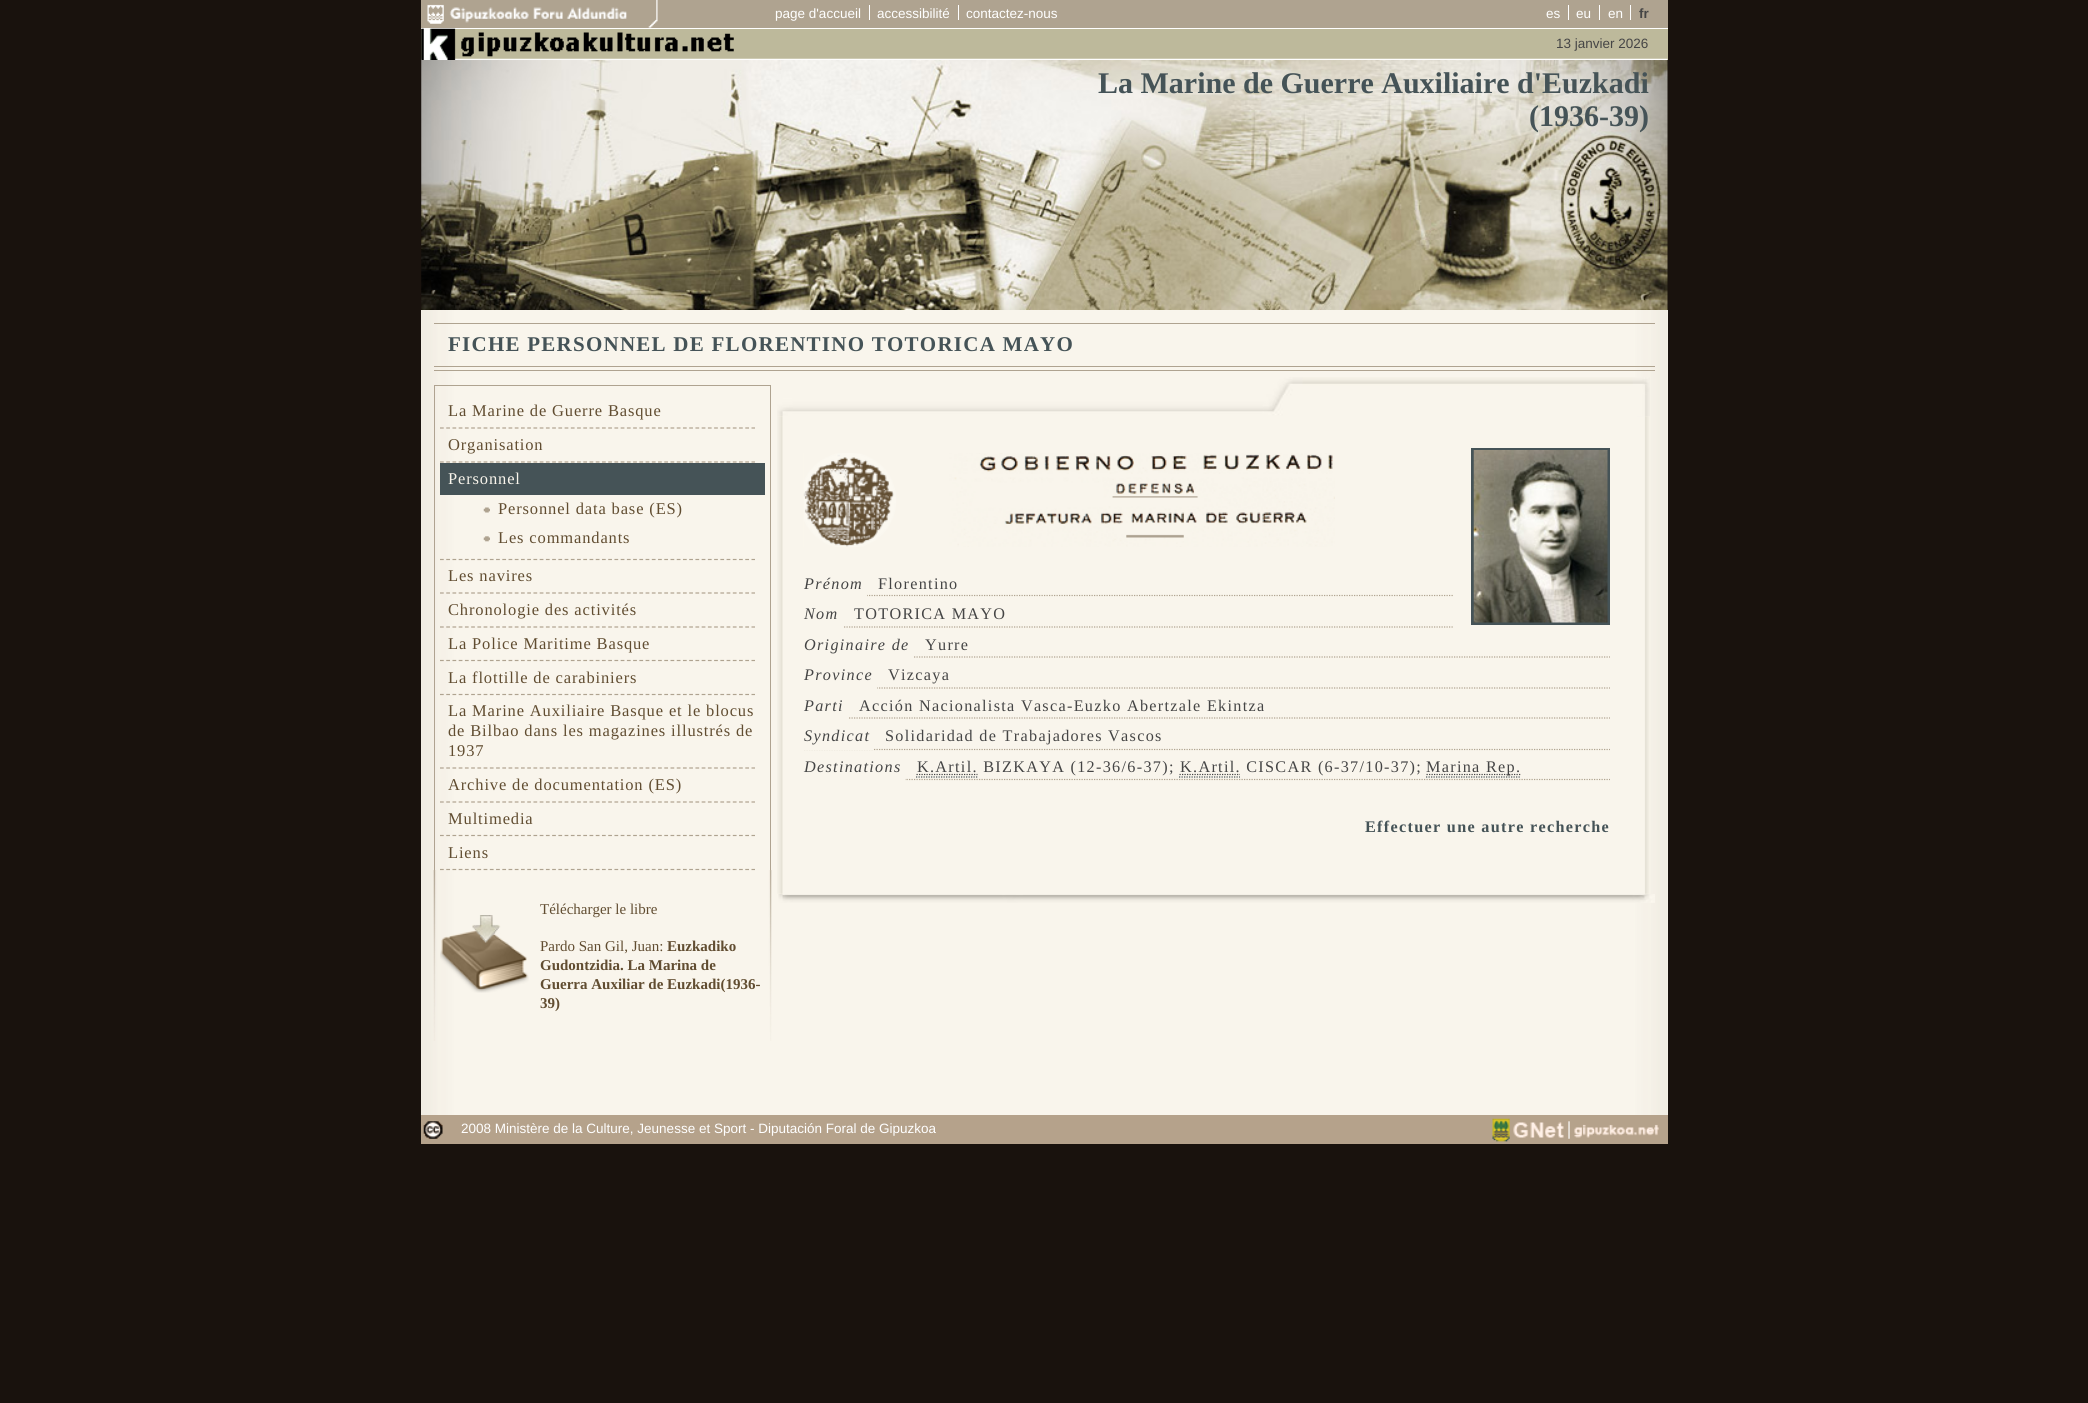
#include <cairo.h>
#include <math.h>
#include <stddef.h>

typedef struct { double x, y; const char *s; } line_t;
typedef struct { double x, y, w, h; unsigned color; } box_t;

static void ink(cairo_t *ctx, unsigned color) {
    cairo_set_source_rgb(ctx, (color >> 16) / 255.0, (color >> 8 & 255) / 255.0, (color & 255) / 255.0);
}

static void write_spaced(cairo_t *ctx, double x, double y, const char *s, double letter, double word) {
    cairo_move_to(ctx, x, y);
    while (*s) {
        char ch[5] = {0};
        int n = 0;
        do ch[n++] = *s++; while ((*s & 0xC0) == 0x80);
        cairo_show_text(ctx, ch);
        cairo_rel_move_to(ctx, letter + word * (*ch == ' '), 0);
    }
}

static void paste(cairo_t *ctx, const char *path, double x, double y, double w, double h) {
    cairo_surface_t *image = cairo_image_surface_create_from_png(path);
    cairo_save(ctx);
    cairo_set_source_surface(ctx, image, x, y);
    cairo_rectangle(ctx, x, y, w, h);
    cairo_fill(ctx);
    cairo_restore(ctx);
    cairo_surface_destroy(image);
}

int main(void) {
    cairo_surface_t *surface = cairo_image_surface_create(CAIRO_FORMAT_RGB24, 2088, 1403);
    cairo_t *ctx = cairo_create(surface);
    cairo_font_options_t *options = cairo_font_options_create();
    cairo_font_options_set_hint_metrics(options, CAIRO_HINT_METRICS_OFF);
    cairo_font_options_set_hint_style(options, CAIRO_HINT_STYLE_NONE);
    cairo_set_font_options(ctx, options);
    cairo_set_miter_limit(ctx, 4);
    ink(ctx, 0x19120D);
    cairo_paint(ctx);
    ink(ctx, 0xAFA390);
    cairo_rectangle(ctx, 421, 0, 1247, 28);
    cairo_fill(ctx);
    ink(ctx, 0xFFFFFF);
    cairo_rectangle(ctx, 421, 28, 1247, 1);
    cairo_fill(ctx);
    paste(ctx, "media/1.png", 427, 0, 231, 28);
    cairo_rectangle(ctx, 869, 5, 1, 15);
    cairo_fill(ctx);
    cairo_select_font_face(ctx, "Liberation Sans", CAIRO_FONT_SLANT_NORMAL, CAIRO_FONT_WEIGHT_NORMAL);
    cairo_set_font_size(ctx, 13.5);
    cairo_move_to(ctx, 775, 18);
    cairo_show_text(ctx, "page d'accueil");
    cairo_rectangle(ctx, 958, 5, 1, 15);
    cairo_fill(ctx);
    cairo_move_to(ctx, 877, 18);
    cairo_show_text(ctx, "accessibilité");
    cairo_move_to(ctx, 966, 18);
    cairo_show_text(ctx, "contactez-nous");
    cairo_rectangle(ctx, 1568, 5, 1, 15);
    cairo_fill(ctx);
    cairo_move_to(ctx, 1546, 18);
    cairo_show_text(ctx, "es");
    cairo_rectangle(ctx, 1599, 5, 1, 15);
    cairo_fill(ctx);
    cairo_move_to(ctx, 1576, 18);
    cairo_show_text(ctx, "eu");
    cairo_rectangle(ctx, 1630, 5, 1, 15);
    cairo_fill(ctx);
    cairo_move_to(ctx, 1608, 18);
    cairo_show_text(ctx, "en");
    cairo_select_font_face(ctx, "Liberation Sans", CAIRO_FONT_SLANT_NORMAL, CAIRO_FONT_WEIGHT_BOLD);
    ink(ctx, 0x454545);
    cairo_move_to(ctx, 1639, 18);
    cairo_show_text(ctx, "fr");
    ink(ctx, 0xBDB99B);
    cairo_rectangle(ctx, 421, 29, 1247, 31);
    cairo_fill(ctx);
    paste(ctx, "media/2.png", 421, 58, 1247, 2);
    paste(ctx, "media/3.png", 421, 28, 313, 32);
    cairo_select_font_face(ctx, "Liberation Sans", CAIRO_FONT_SLANT_NORMAL, CAIRO_FONT_WEIGHT_NORMAL);
    ink(ctx, 0x454545);
    cairo_move_to(ctx, 1556, 48);
    cairo_show_text(ctx, "13 janvier 2026");
    paste(ctx, "media/4.png", 421, 60, 1247, 250);
    cairo_select_font_face(ctx, "Liberation Serif", CAIRO_FONT_SLANT_NORMAL, CAIRO_FONT_WEIGHT_BOLD);
    cairo_set_font_size(ctx, 30);
    ink(ctx, 0x455357);
    cairo_move_to(ctx, 1098, 93);
    cairo_show_text(ctx, "La Marine de Guerre Auxiliaire d'Euzkadi");
    cairo_move_to(ctx, 1529, 126);
    cairo_show_text(ctx, "(1936-39)");
    ink(ctx, 0xF9F5EC);
    cairo_rectangle(ctx, 421, 310, 1247, 805);
    cairo_fill(ctx);
    paste(ctx, "media/5.png", 421, 310, 1247, 805);
    ink(ctx, 0xAFA390);
    cairo_rectangle(ctx, 434, 323, 1221, 1);
    cairo_fill(ctx);
    cairo_rectangle(ctx, 434, 366, 1221, 1);
    cairo_fill(ctx);
    cairo_set_font_size(ctx, 21);
    ink(ctx, 0x455357);
    write_spaced(ctx, 448, 351, "FICHE PERSONNEL DE FLORENTINO TOTORICA MAYO", 1.25, 0);
    {
        static const box_t items[] = {
            {434, 370, 1221, 1, 0xAFA390},
            {434, 385, 337, 1, 0xAFA390},
            {770, 385, 1, 485, 0xAFA390},
            {434, 385, 1, 485, 0xAFA390},
        };
        for (size_t i = 0; i < sizeof items / sizeof *items; i++) {
            ink(ctx, items[i].color);
            cairo_rectangle(ctx, items[i].x, items[i].y, items[i].w, items[i].h);
            cairo_fill(ctx);
        }
    }
    cairo_new_path(ctx);
    cairo_move_to(ctx, 440, 428);
    cairo_line_to(ctx, 755, 428);
    cairo_set_line_width(ctx, 1.2);
    cairo_set_dash(ctx, (double[]){3.75, 2.48}, 2, 0);
    cairo_stroke(ctx);
    cairo_select_font_face(ctx, "Liberation Serif", CAIRO_FONT_SLANT_NORMAL, CAIRO_FONT_WEIGHT_NORMAL);
    cairo_set_font_size(ctx, 16.5);
    ink(ctx, 0x614D31);
    write_spaced(ctx, 448, 416, "La Marine de Guerre Basque", 0.85, 0);
    cairo_new_path(ctx);
    cairo_move_to(ctx, 440, 462);
    cairo_line_to(ctx, 755, 462);
    ink(ctx, 0xAFA390);
    cairo_stroke(ctx);
    ink(ctx, 0x614D31);
    write_spaced(ctx, 448, 450, "Organisation", 0.85, 0);
    cairo_new_path(ctx);
    cairo_move_to(ctx, 440, 559.5);
    cairo_line_to(ctx, 755, 559.5);
    ink(ctx, 0xAFA390);
    cairo_stroke(ctx);
    ink(ctx, 0x455357);
    cairo_rectangle(ctx, 440, 463, 325, 32);
    cairo_fill(ctx);
    ink(ctx, 0xF9F5EC);
    write_spaced(ctx, 448, 484, "Personnel", 0.85, 0);
    paste(ctx, "media/6.png", 483, 507, 7, 6);
    ink(ctx, 0x614D31);
    write_spaced(ctx, 498, 514, "Personnel data base (ES)", 0.85, 0);
    paste(ctx, "media/7.png", 483, 536, 7, 6);
    write_spaced(ctx, 498, 543, "Les commandants", 0.85, 0);
    cairo_new_path(ctx);
    cairo_move_to(ctx, 440, 593);
    cairo_line_to(ctx, 755, 593);
    ink(ctx, 0xAFA390);
    cairo_stroke(ctx);
    ink(ctx, 0x614D31);
    write_spaced(ctx, 448, 581, "Les navires", 0.85, 0);
    cairo_new_path(ctx);
    cairo_move_to(ctx, 440, 627);
    cairo_line_to(ctx, 755, 627);
    ink(ctx, 0xAFA390);
    cairo_stroke(ctx);
    ink(ctx, 0x614D31);
    write_spaced(ctx, 448, 615, "Chronologie des activités", 0.85, 0);
    cairo_new_path(ctx);
    cairo_move_to(ctx, 440, 660.5);
    cairo_line_to(ctx, 755, 660.5);
    ink(ctx, 0xAFA390);
    cairo_stroke(ctx);
    ink(ctx, 0x614D31);
    write_spaced(ctx, 448, 649, "La Police Maritime Basque", 0.85, 0);
    cairo_new_path(ctx);
    cairo_move_to(ctx, 440, 694.5);
    cairo_line_to(ctx, 755, 694.5);
    ink(ctx, 0xAFA390);
    cairo_stroke(ctx);
    ink(ctx, 0x614D31);
    write_spaced(ctx, 448, 683, "La flottille de carabiniers", 0.85, 0);
    cairo_new_path(ctx);
    cairo_move_to(ctx, 440, 768);
    cairo_line_to(ctx, 755, 768);
    ink(ctx, 0xAFA390);
    cairo_stroke(ctx);
    ink(ctx, 0x614D31);
    {
        static const line_t items[] = {
            {448, 716, "La Marine Auxiliaire Basque et le blocus"},
            {448, 736, "de Bilbao dans les magazines illustrés de"},
            {448, 756, "1937"},
        };
        for (size_t i = 0; i < sizeof items / sizeof *items; i++) {
            write_spaced(ctx, items[i].x, items[i].y, items[i].s, 0.85, 0);
        }
    }
    cairo_new_path(ctx);
    cairo_move_to(ctx, 440, 802);
    cairo_line_to(ctx, 755, 802);
    ink(ctx, 0xAFA390);
    cairo_stroke(ctx);
    ink(ctx, 0x614D31);
    write_spaced(ctx, 448, 790, "Archive de documentation (ES)", 0.85, 0);
    cairo_new_path(ctx);
    cairo_move_to(ctx, 440, 835.5);
    cairo_line_to(ctx, 755, 835.5);
    ink(ctx, 0xAFA390);
    cairo_stroke(ctx);
    ink(ctx, 0x614D31);
    write_spaced(ctx, 448, 824, "Multimedia", 0.85, 0);
    cairo_new_path(ctx);
    cairo_move_to(ctx, 440, 869.5);
    cairo_line_to(ctx, 755, 869.5);
    ink(ctx, 0xAFA390);
    cairo_stroke(ctx);
    ink(ctx, 0x614D31);
    write_spaced(ctx, 448, 858, "Liens", 0.85, 0);
    paste(ctx, "media/8.png", 433, 870, 339, 171);
    paste(ctx, "media/9.png", 440, 915, 89, 78);
    cairo_set_font_size(ctx, 15);
    cairo_move_to(ctx, 540, 914);
    cairo_show_text(ctx, "Télécharger le libre");
    cairo_move_to(ctx, 540, 951);
    cairo_show_text(ctx, "Pardo San Gil, Juan:");
    cairo_select_font_face(ctx, "Liberation Serif", CAIRO_FONT_SLANT_NORMAL, CAIRO_FONT_WEIGHT_BOLD);
    {
        static const line_t items[] = {
            {667, 951, "Euzkadiko"},
            {540, 970, "Gudontzidia. La Marina de"},
            {540, 989, "Guerra Auxiliar de Euzkadi(1936-"},
            {540, 1008, "39)"},
        };
        for (size_t i = 0; i < sizeof items / sizeof *items; i++) {
            cairo_move_to(ctx, items[i].x, items[i].y);
            cairo_show_text(ctx, items[i].s);
        }
    }
    paste(ctx, "media/10.png", 777, 377, 873, 40);
    paste(ctx, "media/11.png", 777, 416, 872, 478);
    paste(ctx, "media/12.png", 803, 453, 532, 94);
    cairo_new_path(ctx);
    cairo_move_to(ctx, 804, 595.5);
    cairo_line_to(ctx, 1610, 595.5);
    ink(ctx, 0xAFA390);
    cairo_set_dash(ctx, (double[]){1.25, 1.25}, 2, 0);
    cairo_stroke(ctx);
    cairo_new_path(ctx);
    cairo_move_to(ctx, 804, 627);
    cairo_line_to(ctx, 1610, 627);
    cairo_stroke(ctx);
    ink(ctx, 0xF9F5EC);
    cairo_rectangle(ctx, 1454, 594, 156, 34);
    cairo_fill(ctx);
    cairo_rectangle(ctx, 1472.5, 449.5, 136, 174);
    ink(ctx, 0x455357);
    cairo_set_line_width(ctx, 3);
    cairo_set_dash(ctx, NULL, 0, 0);
    cairo_stroke(ctx);
    paste(ctx, "media/13.png", 1473, 450, 135, 173);
    cairo_select_font_face(ctx, "Liberation Serif", CAIRO_FONT_SLANT_ITALIC, CAIRO_FONT_WEIGHT_NORMAL);
    cairo_set_font_size(ctx, 16.2);
    ink(ctx, 0x454545);
    write_spaced(ctx, 804, 589, "Prénom", 1.3, 0);
    ink(ctx, 0xF9F5EC);
    cairo_rectangle(ctx, 864, 594, 3, 4);
    cairo_fill(ctx);
    cairo_rectangle(ctx, 804, 594, 62, 3);
    cairo_fill(ctx);
    cairo_select_font_face(ctx, "Liberation Serif", CAIRO_FONT_SLANT_NORMAL, CAIRO_FONT_WEIGHT_NORMAL);
    ink(ctx, 0x454545);
    write_spaced(ctx, 878, 589, "Florentino", 1.3, 0);
    cairo_select_font_face(ctx, "Liberation Serif", CAIRO_FONT_SLANT_ITALIC, CAIRO_FONT_WEIGHT_NORMAL);
    write_spaced(ctx, 804, 619, "Nom", 1.3, 0);
    ink(ctx, 0xF9F5EC);
    cairo_rectangle(ctx, 804, 626, 39, 2);
    cairo_fill(ctx);
    cairo_select_font_face(ctx, "Liberation Serif", CAIRO_FONT_SLANT_NORMAL, CAIRO_FONT_WEIGHT_NORMAL);
    ink(ctx, 0x454545);
    write_spaced(ctx, 854, 619, "TOTORICA MAYO", 1.3, 0);
    cairo_new_path(ctx);
    cairo_move_to(ctx, 804, 657);
    cairo_line_to(ctx, 1610, 657);
    ink(ctx, 0xAFA390);
    cairo_set_line_width(ctx, 1.2);
    cairo_set_dash(ctx, (double[]){1.25, 1.25}, 2, 0);
    cairo_stroke(ctx);
    cairo_select_font_face(ctx, "Liberation Serif", CAIRO_FONT_SLANT_ITALIC, CAIRO_FONT_WEIGHT_NORMAL);
    ink(ctx, 0x454545);
    write_spaced(ctx, 804, 650, "Originaire de", 1.3, 0);
    ink(ctx, 0xF9F5EC);
    cairo_rectangle(ctx, 909, 656, 4, 3);
    cairo_fill(ctx);
    cairo_rectangle(ctx, 804, 656, 109, 2);
    cairo_fill(ctx);
    cairo_select_font_face(ctx, "Liberation Serif", CAIRO_FONT_SLANT_NORMAL, CAIRO_FONT_WEIGHT_NORMAL);
    ink(ctx, 0x454545);
    write_spaced(ctx, 925, 650, "Yurre", 1.3, 0);
    cairo_new_path(ctx);
    cairo_move_to(ctx, 804, 688);
    cairo_line_to(ctx, 1610, 688);
    ink(ctx, 0xAFA390);
    cairo_stroke(ctx);
    cairo_select_font_face(ctx, "Liberation Serif", CAIRO_FONT_SLANT_ITALIC, CAIRO_FONT_WEIGHT_NORMAL);
    ink(ctx, 0x454545);
    write_spaced(ctx, 804, 680, "Province", 1.3, 0);
    ink(ctx, 0xF9F5EC);
    cairo_rectangle(ctx, 804, 687, 73, 2);
    cairo_fill(ctx);
    cairo_select_font_face(ctx, "Liberation Serif", CAIRO_FONT_SLANT_NORMAL, CAIRO_FONT_WEIGHT_NORMAL);
    ink(ctx, 0x454545);
    write_spaced(ctx, 888, 680, "Vizcaya", 1.3, 0);
    cairo_new_path(ctx);
    cairo_move_to(ctx, 804, 718);
    cairo_line_to(ctx, 1610, 718);
    ink(ctx, 0xAFA390);
    cairo_stroke(ctx);
    cairo_select_font_face(ctx, "Liberation Serif", CAIRO_FONT_SLANT_ITALIC, CAIRO_FONT_WEIGHT_NORMAL);
    ink(ctx, 0x454545);
    write_spaced(ctx, 804, 711, "Parti", 1.3, 0);
    ink(ctx, 0xF9F5EC);
    cairo_rectangle(ctx, 844, 717, 4, 3);
    cairo_fill(ctx);
    cairo_rectangle(ctx, 804, 717, 44, 2);
    cairo_fill(ctx);
    cairo_select_font_face(ctx, "Liberation Serif", CAIRO_FONT_SLANT_NORMAL, CAIRO_FONT_WEIGHT_NORMAL);
    ink(ctx, 0x454545);
    write_spaced(ctx, 859, 711, "Acción Nacionalista Vasca-Euzko Abertzale Ekintza", 1.3, 0);
    cairo_new_path(ctx);
    cairo_move_to(ctx, 804, 749.5);
    cairo_line_to(ctx, 1610, 749.5);
    ink(ctx, 0xAFA390);
    cairo_stroke(ctx);
    cairo_select_font_face(ctx, "Liberation Serif", CAIRO_FONT_SLANT_ITALIC, CAIRO_FONT_WEIGHT_NORMAL);
    ink(ctx, 0x454545);
    write_spaced(ctx, 804, 741, "Syndicat", 1.3, 0);
    ink(ctx, 0xF9F5EC);
    cairo_rectangle(ctx, 804, 748, 70, 2);
    cairo_fill(ctx);
    cairo_select_font_face(ctx, "Liberation Serif", CAIRO_FONT_SLANT_NORMAL, CAIRO_FONT_WEIGHT_NORMAL);
    ink(ctx, 0x454545);
    write_spaced(ctx, 885, 741, "Solidaridad de Trabajadores Vascos", 1.3, 0);
    cairo_new_path(ctx);
    cairo_move_to(ctx, 804, 779.5);
    cairo_line_to(ctx, 1610, 779.5);
    ink(ctx, 0xAFA390);
    cairo_stroke(ctx);
    cairo_select_font_face(ctx, "Liberation Serif", CAIRO_FONT_SLANT_ITALIC, CAIRO_FONT_WEIGHT_NORMAL);
    ink(ctx, 0x454545);
    write_spaced(ctx, 804, 772, "Destinations", 1.3, 0);
    ink(ctx, 0xF9F5EC);
    cairo_rectangle(ctx, 804, 778, 101, 3);
    cairo_fill(ctx);
    cairo_new_path(ctx);
    cairo_move_to(ctx, 916.5, 774.5);
    cairo_line_to(ctx, 977.5, 774.5);
    ink(ctx, 0x454545);
    cairo_stroke(ctx);
    cairo_select_font_face(ctx, "Liberation Serif", CAIRO_FONT_SLANT_NORMAL, CAIRO_FONT_WEIGHT_NORMAL);
    write_spaced(ctx, 917, 772, "K.Artil. BIZKAYA (12-36/6-37); K.Artil. CISCAR (6-37/10-37);", 1.3, 0);
    cairo_new_path(ctx);
    cairo_move_to(ctx, 916, 777);
    cairo_line_to(ctx, 977.5, 777);
    ink(ctx, 0x455357);
    cairo_stroke(ctx);
    cairo_new_path(ctx);
    cairo_move_to(ctx, 1179, 777);
    cairo_line_to(ctx, 1240, 777);
    cairo_stroke(ctx);
    cairo_new_path(ctx);
    cairo_move_to(ctx, 1179.5, 774.5);
    cairo_line_to(ctx, 1240, 774.5);
    ink(ctx, 0x454545);
    cairo_stroke(ctx);
    cairo_new_path(ctx);
    cairo_move_to(ctx, 1426.5, 774.5);
    cairo_line_to(ctx, 1521.5, 774.5);
    cairo_stroke(ctx);
    write_spaced(ctx, 1426, 772, "Marina Rep.", 1.3, 0);
    cairo_new_path(ctx);
    cairo_move_to(ctx, 1426, 777);
    cairo_line_to(ctx, 1521, 777);
    ink(ctx, 0x455357);
    cairo_stroke(ctx);
    cairo_select_font_face(ctx, "Liberation Serif", CAIRO_FONT_SLANT_NORMAL, CAIRO_FONT_WEIGHT_BOLD);
    write_spaced(ctx, 1365, 832, "Effectuer une autre recherche", 1.3, 0);
    paste(ctx, "media/14.png", 778, 894, 877, 9);
    ink(ctx, 0xB5A28B);
    cairo_rectangle(ctx, 421, 1115, 1247, 29);
    cairo_fill(ctx);
    paste(ctx, "media/15.png", 423, 1121, 20, 18);
    cairo_select_font_face(ctx, "Liberation Sans", CAIRO_FONT_SLANT_NORMAL, CAIRO_FONT_WEIGHT_NORMAL);
    cairo_set_font_size(ctx, 13.5);
    ink(ctx, 0xFFFFFF);
    cairo_move_to(ctx, 461, 1133);
    cairo_show_text(ctx, "2008 Ministère de la Culture, Jeunesse et Sport - Diputación Foral de Gipuzkoa");
    paste(ctx, "media/16.png", 1492, 1118, 167, 24);
    cairo_surface_write_to_png(surface, "image.png");
    cairo_font_options_destroy(options);
    cairo_destroy(ctx);
    cairo_surface_destroy(surface);
    return 0;
}
